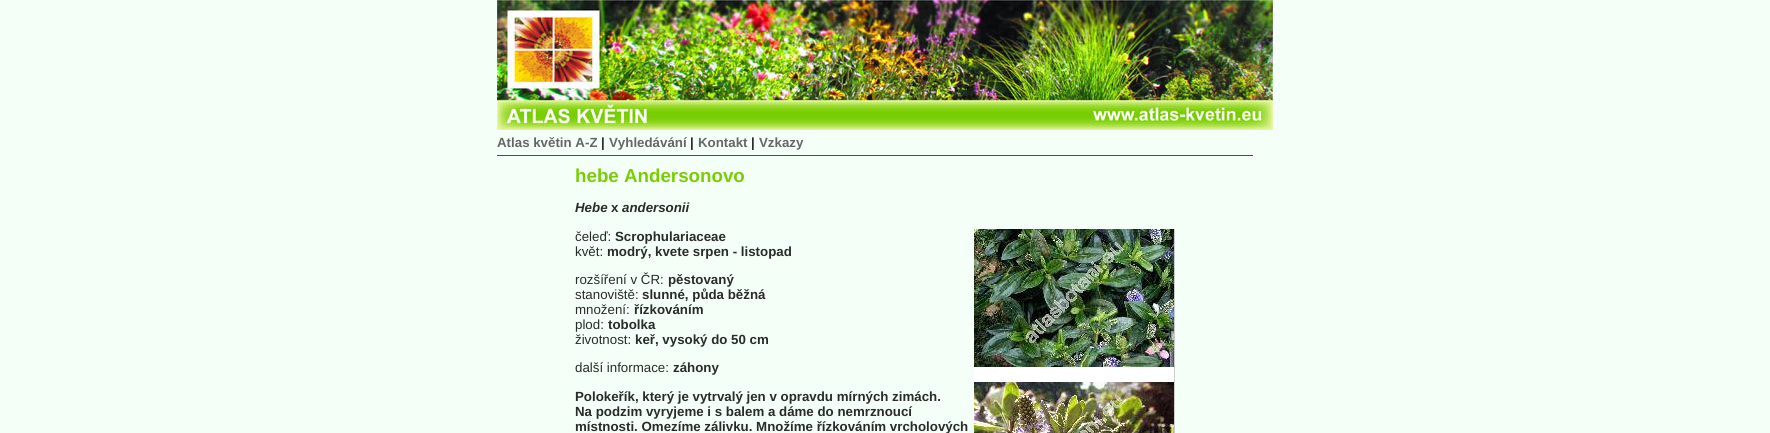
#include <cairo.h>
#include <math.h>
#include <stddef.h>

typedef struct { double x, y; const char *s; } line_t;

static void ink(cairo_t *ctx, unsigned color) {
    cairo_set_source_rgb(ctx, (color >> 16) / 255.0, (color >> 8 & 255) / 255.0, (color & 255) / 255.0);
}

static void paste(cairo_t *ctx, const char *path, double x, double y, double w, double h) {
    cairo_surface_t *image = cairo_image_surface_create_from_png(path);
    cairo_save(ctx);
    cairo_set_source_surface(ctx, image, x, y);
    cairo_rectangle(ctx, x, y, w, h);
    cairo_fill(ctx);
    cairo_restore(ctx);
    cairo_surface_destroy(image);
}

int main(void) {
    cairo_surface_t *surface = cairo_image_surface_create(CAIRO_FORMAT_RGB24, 1770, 433);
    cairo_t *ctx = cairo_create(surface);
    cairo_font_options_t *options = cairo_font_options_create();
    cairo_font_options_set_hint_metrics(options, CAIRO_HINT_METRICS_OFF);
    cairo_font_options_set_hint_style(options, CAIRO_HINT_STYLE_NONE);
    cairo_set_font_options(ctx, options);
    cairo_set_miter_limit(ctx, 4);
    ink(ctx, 0xF4FFF8);
    cairo_paint(ctx);
    paste(ctx, "media/1.png", 497, 0, 776, 130);
    cairo_select_font_face(ctx, "Liberation Sans", CAIRO_FONT_SLANT_NORMAL, CAIRO_FONT_WEIGHT_BOLD);
    cairo_set_font_size(ctx, 13.3);
    ink(ctx, 0x666666);
    cairo_move_to(ctx, 497, 147);
    cairo_show_text(ctx, "Atlas květin A-Z");
    ink(ctx, 0x292C29);
    cairo_move_to(ctx, 601, 147);
    cairo_show_text(ctx, "|");
    ink(ctx, 0x666666);
    cairo_move_to(ctx, 609, 147);
    cairo_show_text(ctx, "Vyhledávání");
    ink(ctx, 0x292C29);
    cairo_move_to(ctx, 690, 147);
    cairo_show_text(ctx, "|");
    ink(ctx, 0x666666);
    cairo_move_to(ctx, 698, 147);
    cairo_show_text(ctx, "Kontakt");
    ink(ctx, 0x292C29);
    cairo_move_to(ctx, 751, 147);
    cairo_show_text(ctx, "|");
    ink(ctx, 0x666666);
    cairo_move_to(ctx, 759, 147);
    cairo_show_text(ctx, "Vzkazy");
    ink(ctx, 0x435056);
    cairo_rectangle(ctx, 497, 155, 756, 1);
    cairo_fill(ctx);
    cairo_set_font_size(ctx, 18.75);
    ink(ctx, 0x79CE01);
    cairo_move_to(ctx, 575, 182);
    cairo_show_text(ctx, "hebe Andersonovo");
    cairo_select_font_face(ctx, "Liberation Sans", CAIRO_FONT_SLANT_ITALIC, CAIRO_FONT_WEIGHT_BOLD);
    cairo_set_font_size(ctx, 13.3);
    ink(ctx, 0x292C29);
    cairo_move_to(ctx, 575, 212);
    cairo_show_text(ctx, "Hebe");
    cairo_select_font_face(ctx, "Liberation Sans", CAIRO_FONT_SLANT_NORMAL, CAIRO_FONT_WEIGHT_BOLD);
    cairo_move_to(ctx, 611, 212);
    cairo_show_text(ctx, "x");
    cairo_select_font_face(ctx, "Liberation Sans", CAIRO_FONT_SLANT_ITALIC, CAIRO_FONT_WEIGHT_BOLD);
    cairo_move_to(ctx, 622, 212);
    cairo_show_text(ctx, "andersonii");
    cairo_select_font_face(ctx, "Liberation Sans", CAIRO_FONT_SLANT_NORMAL, CAIRO_FONT_WEIGHT_NORMAL);
    cairo_move_to(ctx, 575, 241);
    cairo_show_text(ctx, "čeleď:");
    cairo_select_font_face(ctx, "Liberation Sans", CAIRO_FONT_SLANT_NORMAL, CAIRO_FONT_WEIGHT_BOLD);
    cairo_move_to(ctx, 615, 241);
    cairo_show_text(ctx, "Scrophulariaceae");
    ink(ctx, 0xFFFFFF);
    cairo_rectangle(ctx, 974, 367, 200, 15);
    cairo_fill(ctx);
    ink(ctx, 0xCCCCCC);
    cairo_rectangle(ctx, 1174, 229, 1, 204);
    cairo_fill(ctx);
    paste(ctx, "media/2.png", 974, 229, 200, 138);
    paste(ctx, "media/3.png", 974, 382, 200, 51);
    cairo_select_font_face(ctx, "Liberation Sans", CAIRO_FONT_SLANT_NORMAL, CAIRO_FONT_WEIGHT_NORMAL);
    ink(ctx, 0x292C29);
    cairo_move_to(ctx, 575, 256);
    cairo_show_text(ctx, "květ:");
    cairo_select_font_face(ctx, "Liberation Sans", CAIRO_FONT_SLANT_NORMAL, CAIRO_FONT_WEIGHT_BOLD);
    cairo_move_to(ctx, 607, 256);
    cairo_show_text(ctx, "modrý, kvete srpen - listopad");
    cairo_select_font_face(ctx, "Liberation Sans", CAIRO_FONT_SLANT_NORMAL, CAIRO_FONT_WEIGHT_NORMAL);
    cairo_move_to(ctx, 575, 284);
    cairo_show_text(ctx, "rozšíření v ČR:");
    cairo_select_font_face(ctx, "Liberation Sans", CAIRO_FONT_SLANT_NORMAL, CAIRO_FONT_WEIGHT_BOLD);
    cairo_move_to(ctx, 668, 284);
    cairo_show_text(ctx, "pěstovaný");
    cairo_select_font_face(ctx, "Liberation Sans", CAIRO_FONT_SLANT_NORMAL, CAIRO_FONT_WEIGHT_NORMAL);
    cairo_move_to(ctx, 575, 299);
    cairo_show_text(ctx, "stanoviště:");
    cairo_select_font_face(ctx, "Liberation Sans", CAIRO_FONT_SLANT_NORMAL, CAIRO_FONT_WEIGHT_BOLD);
    cairo_move_to(ctx, 642, 299);
    cairo_show_text(ctx, "slunné, půda běžná");
    cairo_select_font_face(ctx, "Liberation Sans", CAIRO_FONT_SLANT_NORMAL, CAIRO_FONT_WEIGHT_NORMAL);
    cairo_move_to(ctx, 575, 314);
    cairo_show_text(ctx, "množení:");
    cairo_select_font_face(ctx, "Liberation Sans", CAIRO_FONT_SLANT_NORMAL, CAIRO_FONT_WEIGHT_BOLD);
    cairo_move_to(ctx, 634, 314);
    cairo_show_text(ctx, "řízkováním");
    cairo_select_font_face(ctx, "Liberation Sans", CAIRO_FONT_SLANT_NORMAL, CAIRO_FONT_WEIGHT_NORMAL);
    cairo_move_to(ctx, 575, 329);
    cairo_show_text(ctx, "plod:");
    cairo_select_font_face(ctx, "Liberation Sans", CAIRO_FONT_SLANT_NORMAL, CAIRO_FONT_WEIGHT_BOLD);
    cairo_move_to(ctx, 608, 329);
    cairo_show_text(ctx, "tobolka");
    cairo_select_font_face(ctx, "Liberation Sans", CAIRO_FONT_SLANT_NORMAL, CAIRO_FONT_WEIGHT_NORMAL);
    cairo_move_to(ctx, 575, 344);
    cairo_show_text(ctx, "životnost:");
    cairo_select_font_face(ctx, "Liberation Sans", CAIRO_FONT_SLANT_NORMAL, CAIRO_FONT_WEIGHT_BOLD);
    cairo_move_to(ctx, 635, 344);
    cairo_show_text(ctx, "keř, vysoký do 50 cm");
    cairo_select_font_face(ctx, "Liberation Sans", CAIRO_FONT_SLANT_NORMAL, CAIRO_FONT_WEIGHT_NORMAL);
    cairo_move_to(ctx, 575, 372);
    cairo_show_text(ctx, "další informace:");
    cairo_select_font_face(ctx, "Liberation Sans", CAIRO_FONT_SLANT_NORMAL, CAIRO_FONT_WEIGHT_BOLD);
    {
        static const line_t items[] = {
            {673, 372, "záhony"},
            {575, 401, "Polokeřík, který je vytrvalý jen v opravdu mírných zimách."},
            {575, 416, "Na podzim vyryjeme i s balem a dáme do nemrznoucí"},
            {575, 431, "místnosti. Omezíme zálivku. Množíme řízkováním vrcholových"},
        };
        for (size_t i = 0; i < sizeof items / sizeof *items; i++) {
            cairo_move_to(ctx, items[i].x, items[i].y);
            cairo_show_text(ctx, items[i].s);
        }
    }
    cairo_surface_write_to_png(surface, "image.png");
    cairo_font_options_destroy(options);
    cairo_destroy(ctx);
    cairo_surface_destroy(surface);
    return 0;
}
